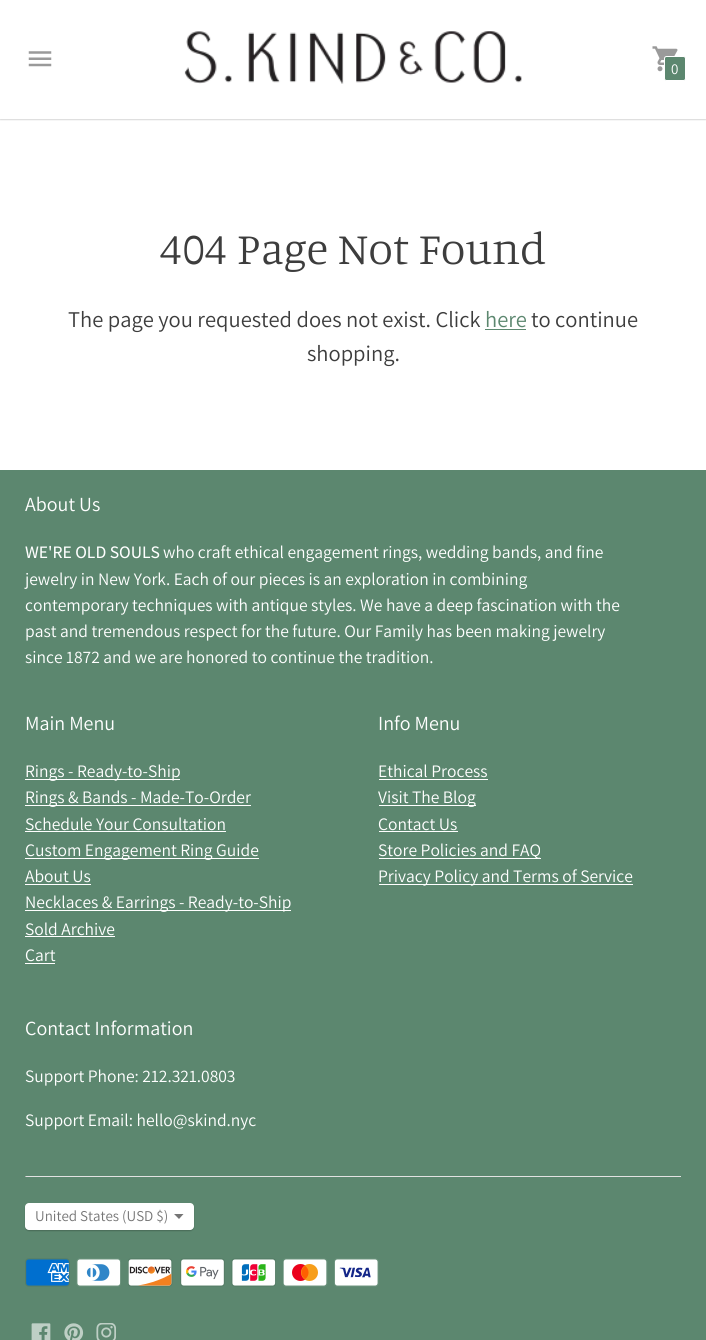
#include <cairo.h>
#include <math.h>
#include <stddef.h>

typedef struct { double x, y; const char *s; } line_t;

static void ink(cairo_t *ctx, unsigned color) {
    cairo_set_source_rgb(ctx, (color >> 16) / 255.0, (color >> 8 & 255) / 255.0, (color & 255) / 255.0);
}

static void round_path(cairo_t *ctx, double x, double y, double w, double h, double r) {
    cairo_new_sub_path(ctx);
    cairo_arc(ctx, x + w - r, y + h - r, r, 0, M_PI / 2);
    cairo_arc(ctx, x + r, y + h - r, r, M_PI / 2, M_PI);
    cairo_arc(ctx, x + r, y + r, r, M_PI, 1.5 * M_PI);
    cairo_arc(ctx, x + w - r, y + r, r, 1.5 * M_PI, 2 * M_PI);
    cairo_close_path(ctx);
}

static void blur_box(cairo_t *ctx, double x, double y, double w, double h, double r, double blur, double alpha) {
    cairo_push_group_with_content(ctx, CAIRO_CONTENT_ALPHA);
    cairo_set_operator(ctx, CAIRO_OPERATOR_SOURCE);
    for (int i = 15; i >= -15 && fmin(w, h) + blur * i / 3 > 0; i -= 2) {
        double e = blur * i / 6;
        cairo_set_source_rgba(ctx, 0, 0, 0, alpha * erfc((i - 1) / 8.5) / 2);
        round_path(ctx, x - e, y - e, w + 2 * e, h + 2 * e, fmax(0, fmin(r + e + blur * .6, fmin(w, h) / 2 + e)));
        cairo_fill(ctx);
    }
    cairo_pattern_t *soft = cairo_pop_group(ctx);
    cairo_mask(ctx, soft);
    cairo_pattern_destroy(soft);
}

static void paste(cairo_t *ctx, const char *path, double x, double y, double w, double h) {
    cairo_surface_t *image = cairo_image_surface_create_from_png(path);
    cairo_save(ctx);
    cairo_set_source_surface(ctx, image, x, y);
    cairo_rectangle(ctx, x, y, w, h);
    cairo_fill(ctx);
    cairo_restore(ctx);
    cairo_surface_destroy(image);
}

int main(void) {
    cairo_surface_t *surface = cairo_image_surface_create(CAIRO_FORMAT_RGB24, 706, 1340);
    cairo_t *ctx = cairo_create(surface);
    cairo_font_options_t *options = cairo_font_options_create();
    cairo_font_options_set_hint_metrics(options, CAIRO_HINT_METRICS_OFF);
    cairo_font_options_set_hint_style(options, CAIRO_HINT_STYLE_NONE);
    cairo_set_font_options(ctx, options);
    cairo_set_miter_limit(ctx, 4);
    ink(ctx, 0xFFFFFF);
    cairo_paint(ctx);
    ink(ctx, 0x000000);
    blur_box(ctx, 0, 1, 706, 119, 0, 0.5, 0.15);
    ink(ctx, 0xFFFFFF);
    cairo_rectangle(ctx, 0, 0, 706, 119);
    cairo_fill(ctx);
    paste(ctx, "media/1.png", 28, 51, 24, 16);
    paste(ctx, "media/2.png", 184, 31, 338, 53);
    paste(ctx, "media/3.png", 652, 46, 26, 26);
    ink(ctx, 0x5C876F);
    round_path(ctx, 664.5, 56.5, 21, 24, 2);
    cairo_fill_preserve(ctx);
    ink(ctx, 0xFFFFFF);
    cairo_set_line_width(ctx, 1);
    cairo_stroke(ctx);
    cairo_select_font_face(ctx, "Assistant", CAIRO_FONT_SLANT_NORMAL, CAIRO_FONT_WEIGHT_NORMAL);
    cairo_set_font_size(ctx, 15);
    cairo_move_to(ctx, 671, 74);
    cairo_show_text(ctx, "0");
    cairo_select_font_face(ctx, "Manuale Light", CAIRO_FONT_SLANT_NORMAL, CAIRO_FONT_WEIGHT_NORMAL);
    cairo_set_font_size(ctx, 45);
    ink(ctx, 0x3D3D3D);
    cairo_move_to(ctx, 160, 264);
    cairo_show_text(ctx, "404 Page Not Found");
    cairo_select_font_face(ctx, "Assistant", CAIRO_FONT_SLANT_NORMAL, CAIRO_FONT_WEIGHT_NORMAL);
    cairo_set_font_size(ctx, 22.5);
    cairo_move_to(ctx, 68, 327);
    cairo_show_text(ctx, "The page you requested does not exist. Click");
    ink(ctx, 0x5C876F);
    cairo_move_to(ctx, 485, 327);
    cairo_show_text(ctx, "here");
    cairo_rectangle(ctx, 485, 329, 41, 1);
    cairo_fill(ctx);
    ink(ctx, 0x3D3D3D);
    cairo_move_to(ctx, 531, 327);
    cairo_show_text(ctx, "to continue");
    cairo_move_to(ctx, 307, 361);
    cairo_show_text(ctx, "shopping.");
    ink(ctx, 0x5C876F);
    cairo_rectangle(ctx, 0, 470, 706, 870);
    cairo_fill(ctx);
    cairo_set_font_size(ctx, 20);
    ink(ctx, 0xFFFFFF);
    cairo_move_to(ctx, 25, 511);
    cairo_show_text(ctx, "About Us");
    cairo_select_font_face(ctx, "Assistant Medium", CAIRO_FONT_SLANT_NORMAL, CAIRO_FONT_WEIGHT_NORMAL);
    cairo_set_font_size(ctx, 17.5);
    cairo_move_to(ctx, 25, 558);
    cairo_show_text(ctx, "WE'RE OLD SOULS");
    cairo_select_font_face(ctx, "Assistant", CAIRO_FONT_SLANT_NORMAL, CAIRO_FONT_WEIGHT_NORMAL);
    {
        static const line_t items[] = {
            {163, 558, "who craft ethical engagement rings, wedding bands, and fine"},
            {25, 585, "jewelry in New York. Each of our pieces is an exploration in combining"},
            {25, 611, "contemporary techniques with antique styles. We have a deep fascination with the"},
            {25, 637, "past and tremendous respect for the future. Our Family has been making jewelry"},
            {25, 663, "since 1872 and we are honored to continue the tradition."},
        };
        for (size_t i = 0; i < sizeof items / sizeof *items; i++) {
            cairo_move_to(ctx, items[i].x, items[i].y);
            cairo_show_text(ctx, items[i].s);
        }
    }
    cairo_set_font_size(ctx, 20);
    cairo_move_to(ctx, 25, 730);
    cairo_show_text(ctx, "Main Menu");
    cairo_rectangle(ctx, 25, 779, 155, 1);
    cairo_fill(ctx);
    cairo_set_font_size(ctx, 17.5);
    cairo_move_to(ctx, 25, 777);
    cairo_show_text(ctx, "Rings - Ready-to-Ship");
    cairo_rectangle(ctx, 25, 805, 226, 1);
    cairo_fill(ctx);
    cairo_move_to(ctx, 25, 803);
    cairo_show_text(ctx, "Rings & Bands - Made-To-Order");
    cairo_move_to(ctx, 25, 830);
    cairo_show_text(ctx, "Schedule Your Consultation");
    cairo_rectangle(ctx, 25, 831, 201, 1);
    cairo_fill(ctx);
    cairo_rectangle(ctx, 25, 858, 234, 1);
    cairo_fill(ctx);
    cairo_move_to(ctx, 25, 856);
    cairo_show_text(ctx, "Custom Engagement Ring Guide");
    cairo_move_to(ctx, 25, 882);
    cairo_show_text(ctx, "About Us");
    cairo_rectangle(ctx, 25, 884, 66, 1);
    cairo_fill(ctx);
    cairo_rectangle(ctx, 25, 910, 266, 1);
    cairo_fill(ctx);
    cairo_move_to(ctx, 25, 908);
    cairo_show_text(ctx, "Necklaces & Earrings - Ready-to-Ship");
    cairo_move_to(ctx, 25, 935);
    cairo_show_text(ctx, "Sold Archive");
    cairo_rectangle(ctx, 25, 936, 90, 1);
    cairo_fill(ctx);
    cairo_move_to(ctx, 25, 961);
    cairo_show_text(ctx, "Cart");
    cairo_rectangle(ctx, 25, 963, 30, 1);
    cairo_fill(ctx);
    cairo_set_font_size(ctx, 20);
    cairo_move_to(ctx, 378, 730);
    cairo_show_text(ctx, "Info Menu");
    cairo_set_font_size(ctx, 17.5);
    cairo_move_to(ctx, 378, 777);
    cairo_show_text(ctx, "Ethical Process");
    cairo_rectangle(ctx, 379, 779, 109, 1);
    cairo_fill(ctx);
    cairo_rectangle(ctx, 379, 805, 97, 1);
    cairo_fill(ctx);
    cairo_move_to(ctx, 378, 803);
    cairo_show_text(ctx, "Visit The Blog");
    cairo_move_to(ctx, 378, 830);
    cairo_show_text(ctx, "Contact Us");
    cairo_rectangle(ctx, 379, 831, 79, 1);
    cairo_fill(ctx);
    cairo_rectangle(ctx, 379, 858, 162, 1);
    cairo_fill(ctx);
    cairo_move_to(ctx, 378, 856);
    cairo_show_text(ctx, "Store Policies and FAQ");
    cairo_rectangle(ctx, 379, 884, 254, 1);
    cairo_fill(ctx);
    cairo_move_to(ctx, 378, 882);
    cairo_show_text(ctx, "Privacy Policy and Terms of Service");
    cairo_set_font_size(ctx, 20);
    cairo_move_to(ctx, 25, 1035);
    cairo_show_text(ctx, "Contact Information");
    cairo_set_font_size(ctx, 17.5);
    cairo_move_to(ctx, 25, 1082);
    cairo_show_text(ctx, "Support Phone: 212.321.0803");
    cairo_move_to(ctx, 25, 1126);
    cairo_show_text(ctx, "Support Email: hello@skind.nyc");
    ink(ctx, 0xE2E2E2);
    cairo_rectangle(ctx, 25, 1176, 656, 1);
    cairo_fill(ctx);
    ink(ctx, 0xAFAFAF);
    cairo_rectangle(ctx, 25, 1176, 1, 1);
    cairo_fill(ctx);
    ink(ctx, 0x000000);
    blur_box(ctx, 25, 1204, 169, 27, 4, 0.5, 0.2);
    ink(ctx, 0xFFFFFF);
    round_path(ctx, 25, 1203, 169, 27, 4);
    cairo_fill(ctx);
    cairo_set_font_size(ctx, 15);
    ink(ctx, 0x757575);
    cairo_move_to(ctx, 35, 1221);
    cairo_show_text(ctx, "United States (USD $)");
    cairo_new_path(ctx);
    cairo_move_to(ctx, 179, 1219);
    cairo_line_to(ctx, 183.5, 1214);
    cairo_line_to(ctx, 174, 1214);
    cairo_close_path(ctx);
    cairo_fill(ctx);
    paste(ctx, "media/4.png", 25, 1258, 45, 29);
    paste(ctx, "media/5.png", 76, 1258, 45, 29);
    paste(ctx, "media/6.png", 128, 1258, 45, 29);
    paste(ctx, "media/7.png", 180, 1258, 45, 29);
    paste(ctx, "media/8.png", 231, 1258, 45, 29);
    paste(ctx, "media/9.png", 283, 1258, 45, 29);
    paste(ctx, "media/10.png", 334, 1258, 45, 29);
    paste(ctx, "media/11.png", 31, 1323, 20, 17);
    paste(ctx, "media/12.png", 64, 1323, 20, 17);
    paste(ctx, "media/13.png", 96, 1323, 20, 17);
    cairo_surface_write_to_png(surface, "image.png");
    cairo_font_options_destroy(options);
    cairo_destroy(ctx);
    cairo_surface_destroy(surface);
    return 0;
}
